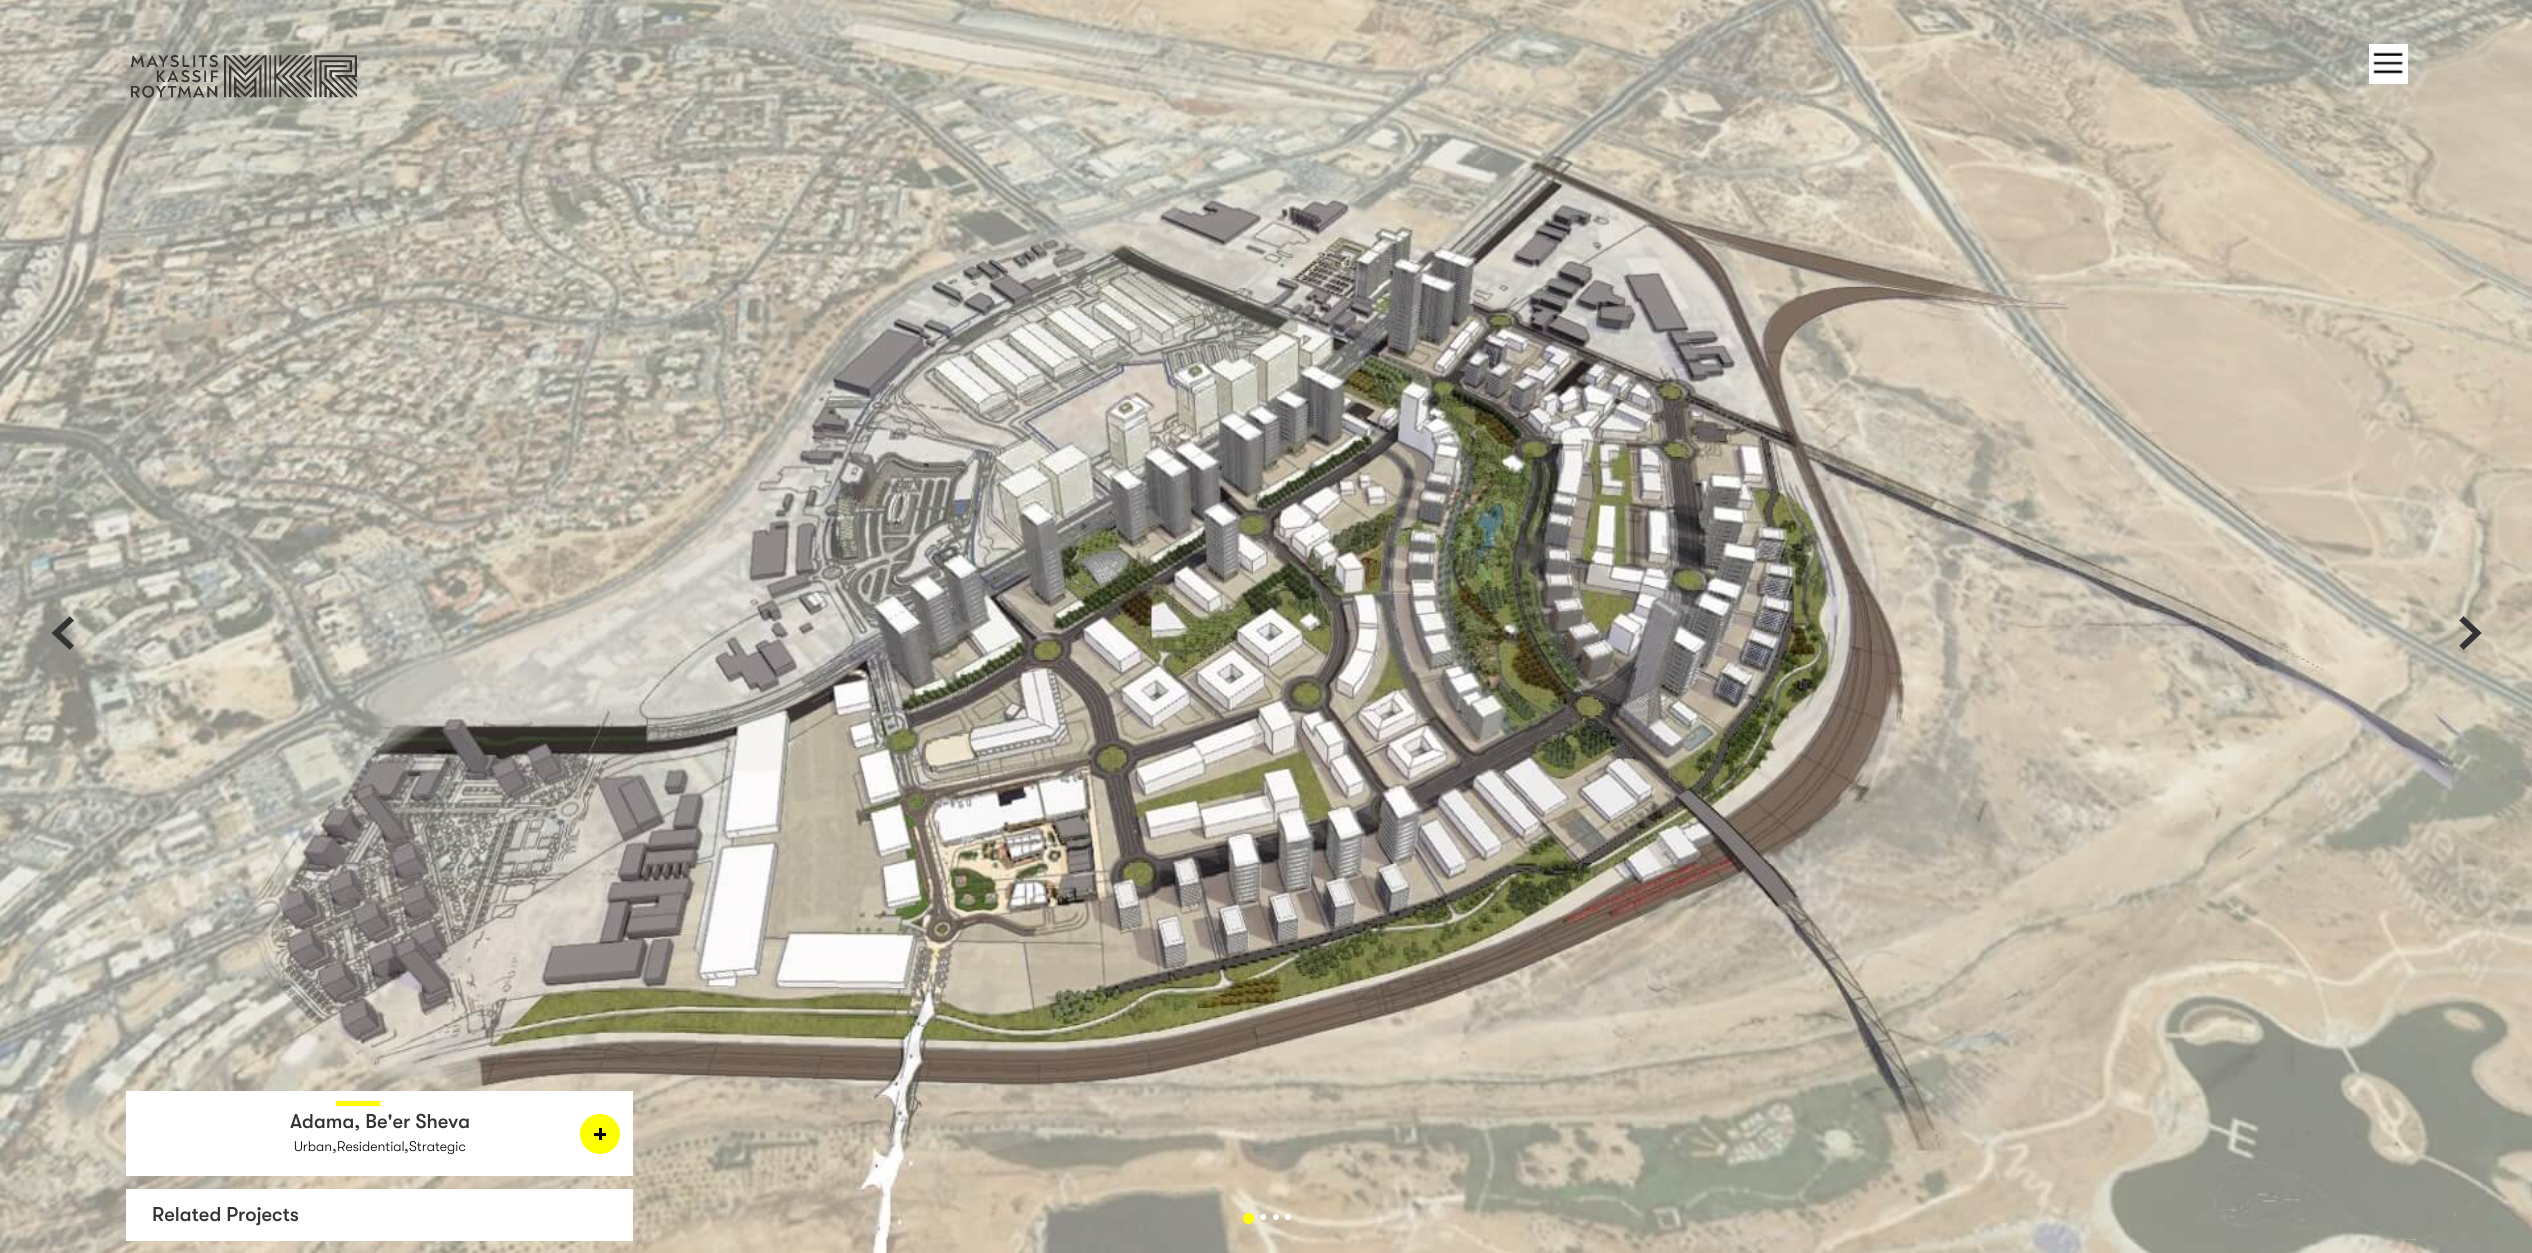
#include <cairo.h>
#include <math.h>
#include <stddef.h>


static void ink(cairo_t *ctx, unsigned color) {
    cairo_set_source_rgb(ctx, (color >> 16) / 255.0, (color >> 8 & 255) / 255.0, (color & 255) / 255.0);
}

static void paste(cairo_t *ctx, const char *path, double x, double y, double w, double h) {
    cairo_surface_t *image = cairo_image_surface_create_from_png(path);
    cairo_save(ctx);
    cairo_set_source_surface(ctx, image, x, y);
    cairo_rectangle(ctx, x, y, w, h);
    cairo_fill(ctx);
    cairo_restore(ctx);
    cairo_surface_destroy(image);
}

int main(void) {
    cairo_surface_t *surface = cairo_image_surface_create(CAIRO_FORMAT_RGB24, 2532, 1253);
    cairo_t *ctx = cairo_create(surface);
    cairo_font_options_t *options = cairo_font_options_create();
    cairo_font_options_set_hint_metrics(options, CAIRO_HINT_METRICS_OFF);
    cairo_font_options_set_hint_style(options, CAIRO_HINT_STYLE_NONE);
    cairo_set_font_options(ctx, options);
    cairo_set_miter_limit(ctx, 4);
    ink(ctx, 0xFFFFFF);
    cairo_paint(ctx);
    paste(ctx, "media/3.png", 0, 0, 2532, 1253);
    paste(ctx, "media/1.png", 130, 55, 227, 43);
    ink(ctx, 0xFFFFFF);
    cairo_rectangle(ctx, 2369, 44, 39, 40);
    cairo_fill(ctx);
    paste(ctx, "media/2.png", 2373, 52, 30, 22);
    cairo_select_font_face(ctx, "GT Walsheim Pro", CAIRO_FONT_SLANT_NORMAL, CAIRO_FONT_WEIGHT_NORMAL);
    cairo_set_font_size(ctx, 88);
    ink(ctx, 0x333333);
    cairo_move_to(ctx, 51, 656);
    cairo_show_text(ctx, "‹");
    cairo_move_to(ctx, 2458, 656);
    cairo_show_text(ctx, "›");
    ink(ctx, 0xFFFF00);
    cairo_new_path(ctx);
    cairo_arc(ctx, 1248.5, 1218.5, 5.5, 0, 2 * M_PI);
    cairo_fill(ctx);
    ink(ctx, 0xFFFFFF);
    cairo_arc(ctx, 1263, 1217, 3, 0, 2 * M_PI);
    cairo_fill(ctx);
    cairo_arc(ctx, 1276, 1217, 3, 0, 2 * M_PI);
    cairo_fill(ctx);
    cairo_arc(ctx, 1288, 1217, 3, 0, 2 * M_PI);
    cairo_fill(ctx);
    cairo_rectangle(ctx, 126, 1091, 507, 85);
    cairo_fill(ctx);
    ink(ctx, 0xFFFF00);
    cairo_rectangle(ctx, 336, 1101, 44, 5);
    cairo_fill(ctx);
    cairo_select_font_face(ctx, "GT Walsheim Pro Medium", CAIRO_FONT_SLANT_NORMAL, CAIRO_FONT_WEIGHT_NORMAL);
    cairo_set_font_size(ctx, 20);
    ink(ctx, 0x333333);
    cairo_move_to(ctx, 290, 1128);
    cairo_show_text(ctx, "Adama, Be'er Sheva");
    ink(ctx, 0xFDFF00);
    cairo_new_path(ctx);
    cairo_arc(ctx, 600, 1134, 20, 0, 2 * M_PI);
    cairo_fill(ctx);
    ink(ctx, 0x000000);
    cairo_rectangle(ctx, 599, 1128, 3, 12);
    cairo_fill(ctx);
    cairo_rectangle(ctx, 594, 1133, 12, 3);
    cairo_fill(ctx);
    cairo_select_font_face(ctx, "GT Walsheim Pro Light", CAIRO_FONT_SLANT_NORMAL, CAIRO_FONT_WEIGHT_NORMAL);
    cairo_set_font_size(ctx, 14);
    cairo_move_to(ctx, 294, 1151);
    cairo_show_text(ctx, "Urban");
    cairo_select_font_face(ctx, "GT Walsheim Pro", CAIRO_FONT_SLANT_NORMAL, CAIRO_FONT_WEIGHT_NORMAL);
    cairo_set_font_size(ctx, 16);
    ink(ctx, 0x333333);
    cairo_move_to(ctx, 332, 1151);
    cairo_show_text(ctx, ",");
    cairo_select_font_face(ctx, "GT Walsheim Pro Light", CAIRO_FONT_SLANT_NORMAL, CAIRO_FONT_WEIGHT_NORMAL);
    cairo_set_font_size(ctx, 14);
    ink(ctx, 0x000000);
    cairo_move_to(ctx, 337, 1151);
    cairo_show_text(ctx, "Residential");
    cairo_select_font_face(ctx, "GT Walsheim Pro", CAIRO_FONT_SLANT_NORMAL, CAIRO_FONT_WEIGHT_NORMAL);
    cairo_set_font_size(ctx, 16);
    ink(ctx, 0x333333);
    cairo_move_to(ctx, 404, 1151);
    cairo_show_text(ctx, ",");
    cairo_select_font_face(ctx, "GT Walsheim Pro Light", CAIRO_FONT_SLANT_NORMAL, CAIRO_FONT_WEIGHT_NORMAL);
    cairo_set_font_size(ctx, 14);
    ink(ctx, 0x000000);
    cairo_move_to(ctx, 409, 1151);
    cairo_show_text(ctx, "Strategic");
    ink(ctx, 0xFFFFFF);
    cairo_rectangle(ctx, 126, 1189, 507, 52);
    cairo_fill(ctx);
    cairo_select_font_face(ctx, "GT Walsheim Pro Medium", CAIRO_FONT_SLANT_NORMAL, CAIRO_FONT_WEIGHT_NORMAL);
    cairo_set_font_size(ctx, 20);
    ink(ctx, 0x333333);
    cairo_move_to(ctx, 152, 1221);
    cairo_show_text(ctx, "Related Projects");
    cairo_surface_write_to_png(surface, "image.png");
    cairo_font_options_destroy(options);
    cairo_destroy(ctx);
    cairo_surface_destroy(surface);
    return 0;
}
